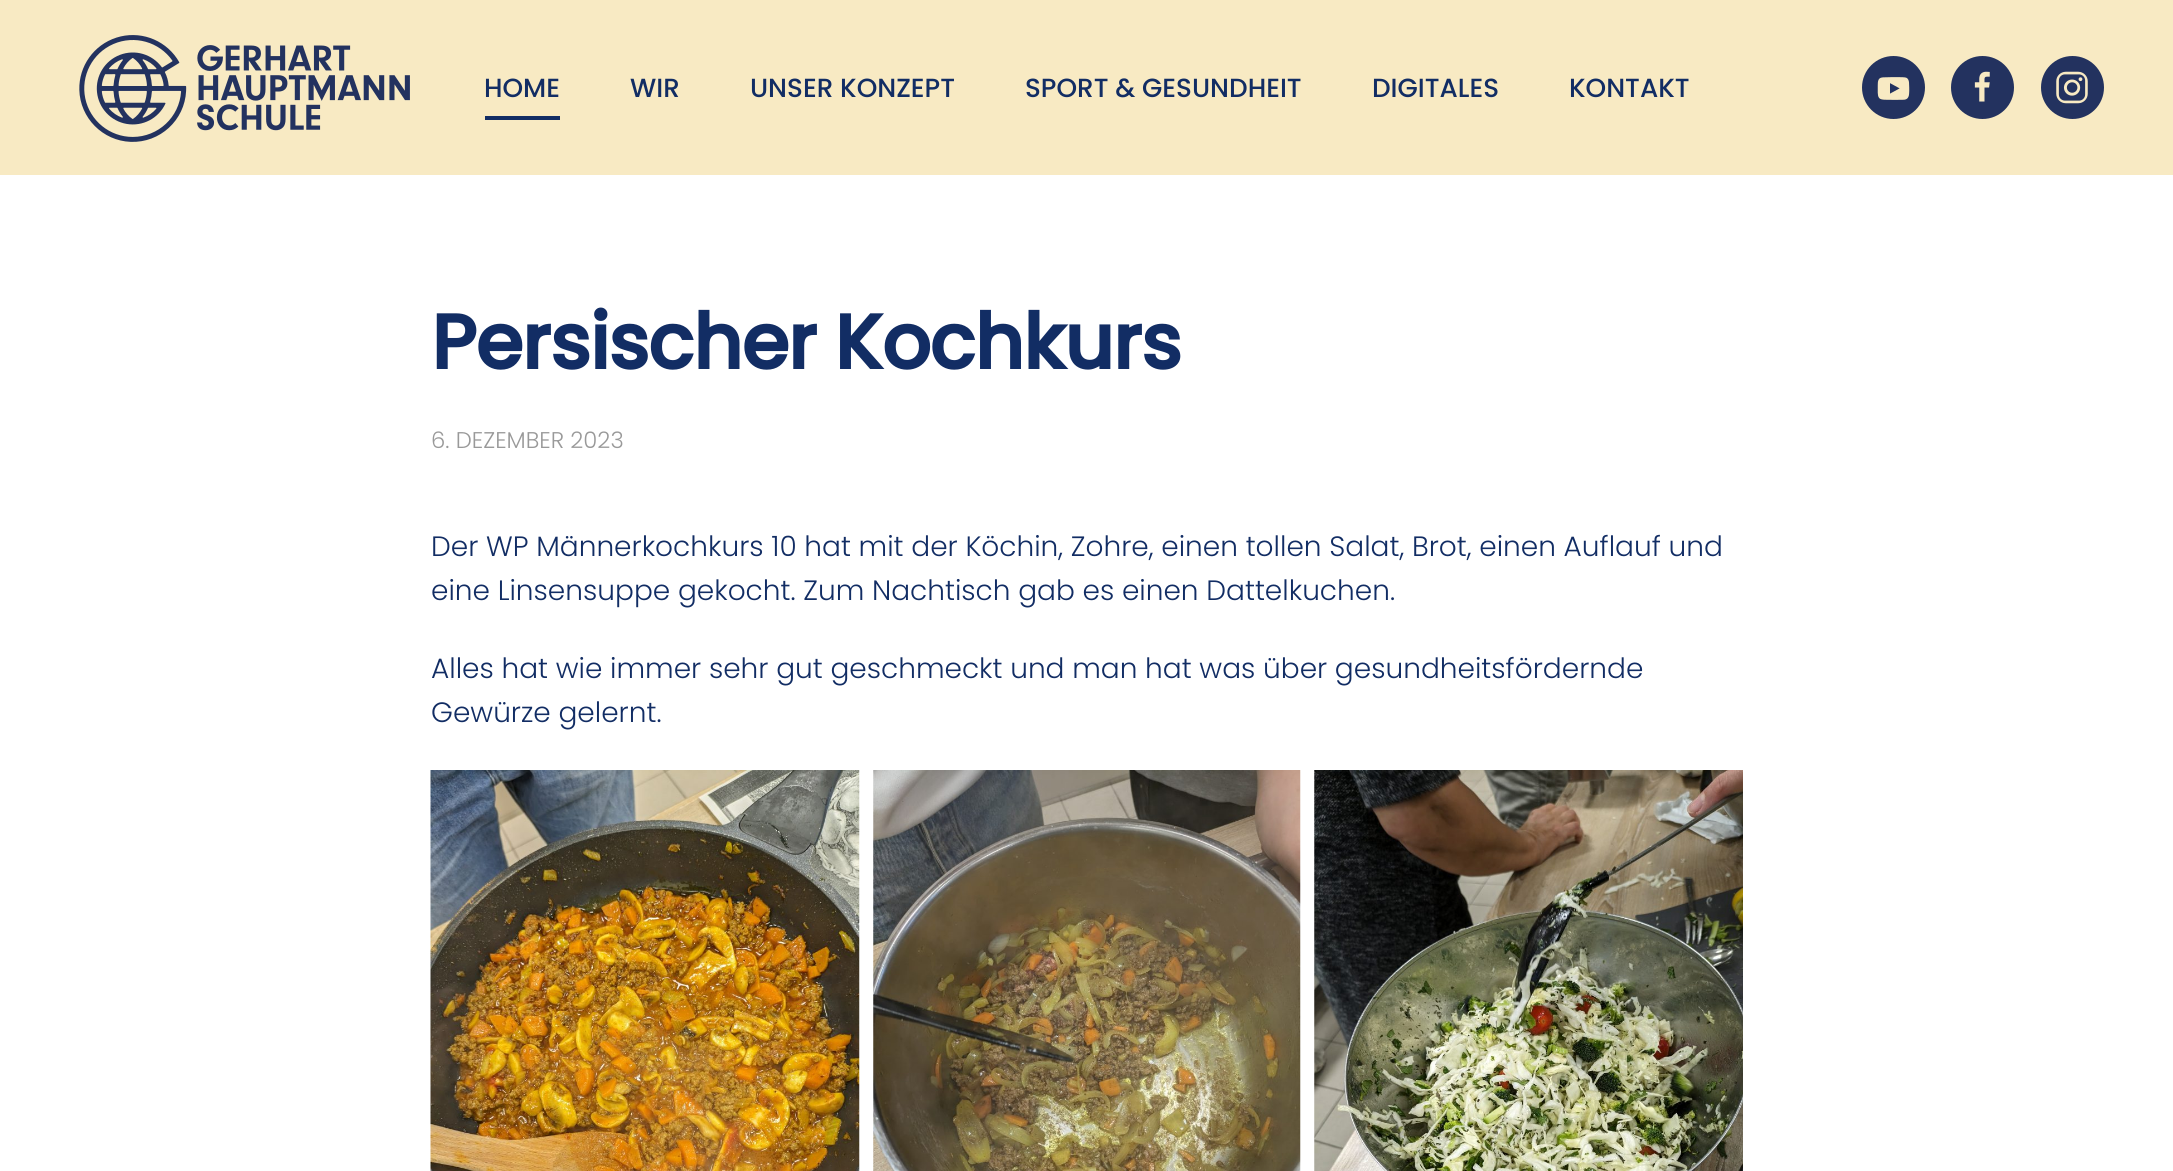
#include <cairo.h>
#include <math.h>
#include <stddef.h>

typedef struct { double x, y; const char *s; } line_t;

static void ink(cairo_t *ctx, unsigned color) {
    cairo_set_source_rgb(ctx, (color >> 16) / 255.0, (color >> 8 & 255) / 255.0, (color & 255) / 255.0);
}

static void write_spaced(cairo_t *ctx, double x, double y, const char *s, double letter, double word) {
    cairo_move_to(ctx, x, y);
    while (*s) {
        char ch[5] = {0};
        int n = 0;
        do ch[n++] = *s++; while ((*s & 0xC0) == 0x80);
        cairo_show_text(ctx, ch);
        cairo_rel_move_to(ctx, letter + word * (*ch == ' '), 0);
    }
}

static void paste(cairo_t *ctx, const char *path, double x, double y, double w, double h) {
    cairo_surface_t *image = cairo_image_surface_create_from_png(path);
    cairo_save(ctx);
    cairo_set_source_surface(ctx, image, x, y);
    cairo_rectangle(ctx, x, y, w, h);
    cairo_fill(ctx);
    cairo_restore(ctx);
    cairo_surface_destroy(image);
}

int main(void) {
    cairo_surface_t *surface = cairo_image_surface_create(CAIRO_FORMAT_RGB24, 2173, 1171);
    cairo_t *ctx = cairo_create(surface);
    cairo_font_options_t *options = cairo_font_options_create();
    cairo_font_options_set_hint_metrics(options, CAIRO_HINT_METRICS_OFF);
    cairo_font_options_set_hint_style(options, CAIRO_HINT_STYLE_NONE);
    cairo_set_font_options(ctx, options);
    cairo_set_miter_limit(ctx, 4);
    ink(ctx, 0xFFFFFF);
    cairo_paint(ctx);
    ink(ctx, 0xF8EAC3);
    cairo_rectangle(ctx, 0, 0, 2173, 175);
    cairo_fill(ctx);
    paste(ctx, "media/1.png", 79, 35, 331, 107);
    cairo_select_font_face(ctx, "Poppins Medium", CAIRO_FONT_SLANT_NORMAL, CAIRO_FONT_WEIGHT_NORMAL);
    cairo_set_font_size(ctx, 26.25);
    ink(ctx, 0x122D64);
    cairo_move_to(ctx, 484, 97);
    cairo_show_text(ctx, "HOME");
    cairo_rectangle(ctx, 485, 116, 75, 4);
    cairo_fill(ctx);
    {
        static const line_t items[] = {
            {630, 97, "WIR"},
            {750, 97, "UNSER KONZEPT"},
            {1025, 97, "SPORT & GESUNDHEIT"},
            {1372, 97, "DIGITALES"},
            {1569, 97, "KONTAKT"},
        };
        for (size_t i = 0; i < sizeof items / sizeof *items; i++) {
            cairo_move_to(ctx, items[i].x, items[i].y);
            cairo_show_text(ctx, items[i].s);
        }
    }
    ink(ctx, 0x23325F);
    cairo_new_path(ctx);
    cairo_arc(ctx, 1893.5, 87.5, 31.5, 0, 2 * M_PI);
    cairo_fill(ctx);
    paste(ctx, "media/2.png", 1877, 77, 33, 23);
    cairo_arc(ctx, 1982.5, 87.5, 31.5, 0, 2 * M_PI);
    cairo_fill(ctx);
    paste(ctx, "media/3.png", 1974, 71, 16, 31);
    cairo_arc(ctx, 2072.5, 87.5, 31.5, 0, 2 * M_PI);
    cairo_fill(ctx);
    paste(ctx, "media/4.png", 2056, 71, 32, 33);
    cairo_select_font_face(ctx, "Poppins", CAIRO_FONT_SLANT_NORMAL, CAIRO_FONT_WEIGHT_BOLD);
    cairo_set_font_size(ctx, 77);
    ink(ctx, 0x122D64);
    write_spaced(ctx, 431, 369, "Persischer Kochkurs", -1.4, 0);
    cairo_select_font_face(ctx, "Poppins Light", CAIRO_FONT_SLANT_NORMAL, CAIRO_FONT_WEIGHT_NORMAL);
    cairo_set_font_size(ctx, 22.75);
    ink(ctx, 0x999999);
    cairo_move_to(ctx, 431, 448);
    cairo_show_text(ctx, "6. DEZEMBER 2023");
    cairo_set_font_size(ctx, 28);
    ink(ctx, 0x122D64);
    {
        static const line_t items[] = {
            {431, 556, "Der WP Männerkochkurs 10 hat mit der Köchin, Zohre, einen tollen Salat, Brot, einen Auflauf und"},
            {431, 600, "eine Linsensuppe gekocht. Zum Nachtisch gab es einen Dattelkuchen."},
            {431, 678, "Alles hat wie immer sehr gut geschmeckt und man hat was über gesundheitsfördernde"},
            {431, 722, "Gewürze gelernt."},
        };
        for (size_t i = 0; i < sizeof items / sizeof *items; i++) {
            cairo_move_to(ctx, items[i].x, items[i].y);
            cairo_show_text(ctx, items[i].s);
        }
    }
    paste(ctx, "media/5.png", 430, 770, 430, 401);
    paste(ctx, "media/6.png", 873, 770, 428, 401);
    paste(ctx, "media/7.png", 1314, 770, 429, 401);
    cairo_surface_write_to_png(surface, "image.png");
    cairo_font_options_destroy(options);
    cairo_destroy(ctx);
    cairo_surface_destroy(surface);
    return 0;
}
